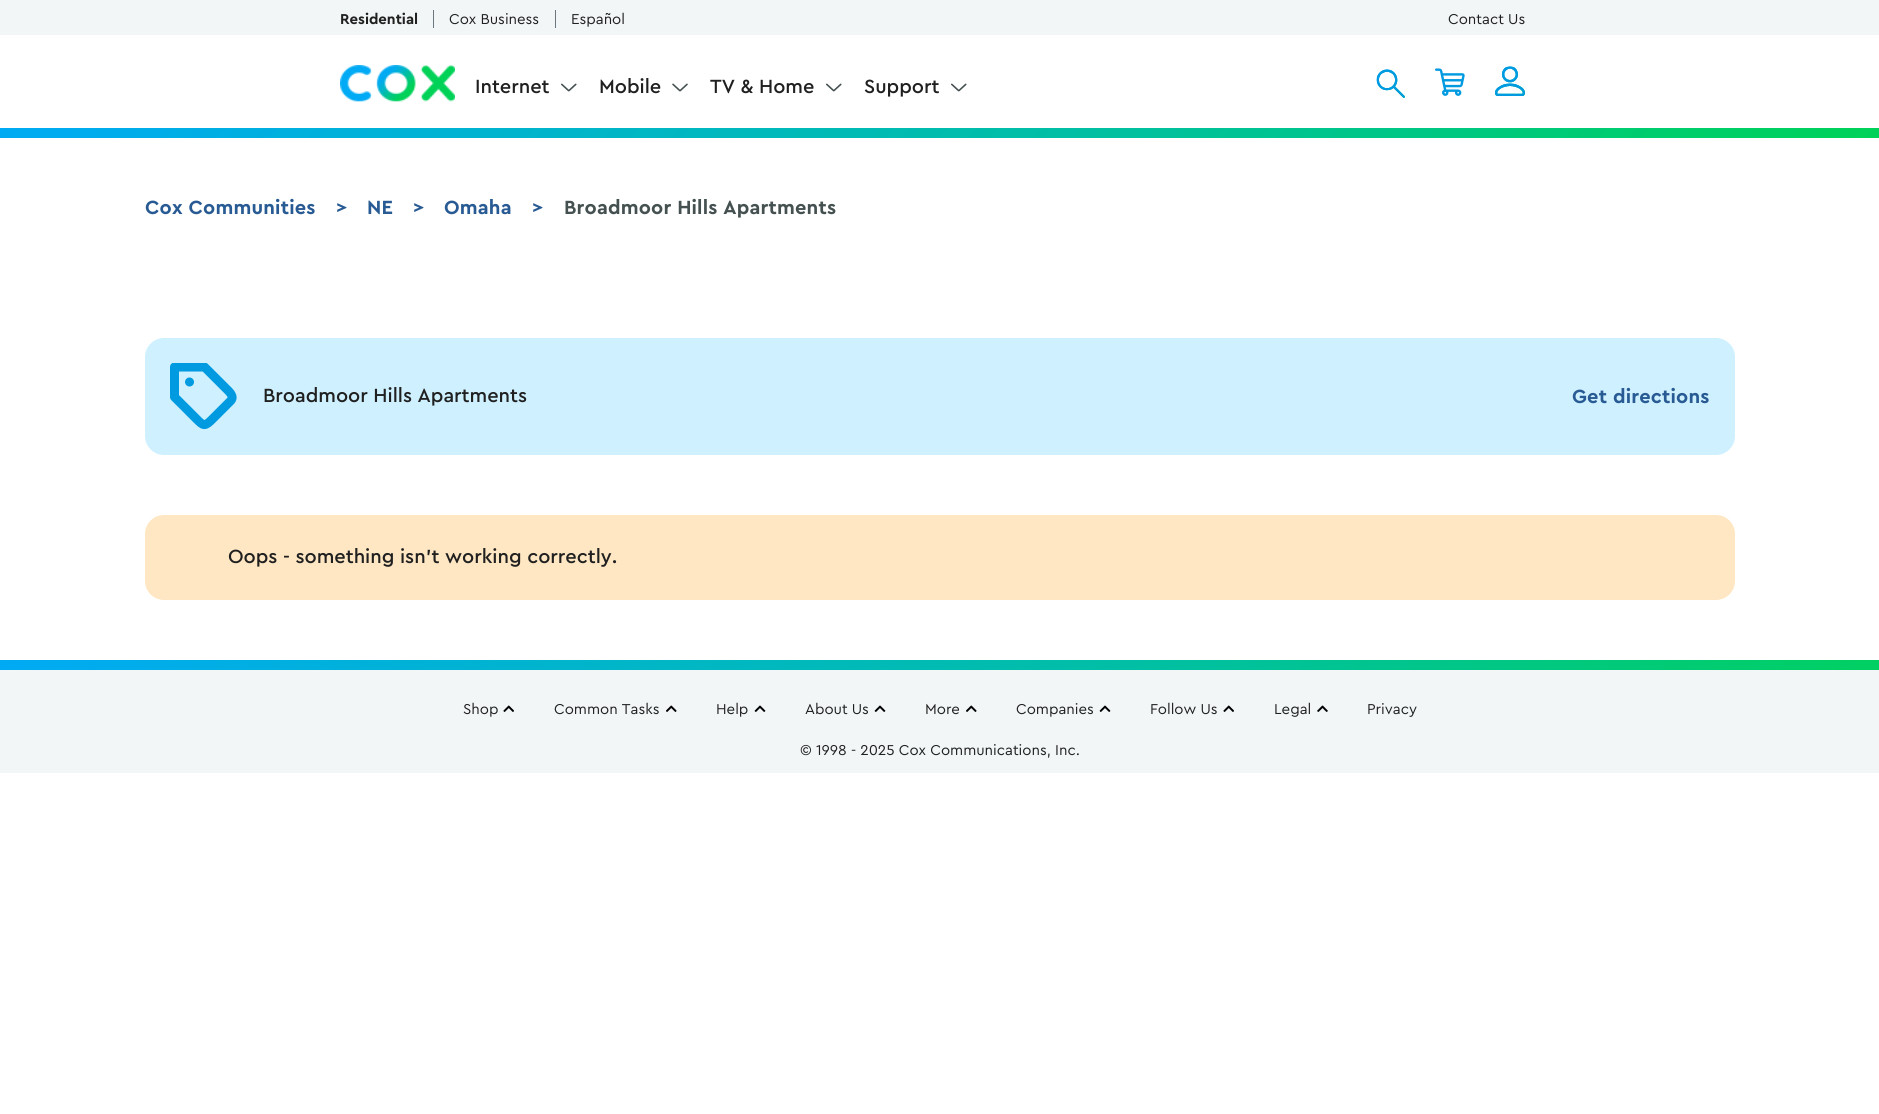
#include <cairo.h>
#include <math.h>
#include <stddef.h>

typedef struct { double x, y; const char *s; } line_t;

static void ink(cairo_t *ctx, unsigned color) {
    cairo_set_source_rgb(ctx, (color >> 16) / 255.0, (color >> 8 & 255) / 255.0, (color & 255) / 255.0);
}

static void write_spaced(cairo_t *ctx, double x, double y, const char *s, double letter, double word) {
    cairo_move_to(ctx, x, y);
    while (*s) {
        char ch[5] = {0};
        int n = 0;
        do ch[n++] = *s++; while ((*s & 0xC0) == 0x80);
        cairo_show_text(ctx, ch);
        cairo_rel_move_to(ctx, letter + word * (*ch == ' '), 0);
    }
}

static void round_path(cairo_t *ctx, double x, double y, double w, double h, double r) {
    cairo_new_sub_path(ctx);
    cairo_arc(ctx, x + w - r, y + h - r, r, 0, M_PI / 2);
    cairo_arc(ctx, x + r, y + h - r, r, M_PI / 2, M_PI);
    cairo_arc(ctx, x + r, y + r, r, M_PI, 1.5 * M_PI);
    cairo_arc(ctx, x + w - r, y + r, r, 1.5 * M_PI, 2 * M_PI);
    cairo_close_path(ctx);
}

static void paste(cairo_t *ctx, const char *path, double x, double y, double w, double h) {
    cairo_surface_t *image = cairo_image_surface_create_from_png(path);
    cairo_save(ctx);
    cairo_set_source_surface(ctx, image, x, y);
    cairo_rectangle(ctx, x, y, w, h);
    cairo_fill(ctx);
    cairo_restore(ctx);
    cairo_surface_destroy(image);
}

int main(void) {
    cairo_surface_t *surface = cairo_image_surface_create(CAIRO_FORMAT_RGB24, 1879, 1114);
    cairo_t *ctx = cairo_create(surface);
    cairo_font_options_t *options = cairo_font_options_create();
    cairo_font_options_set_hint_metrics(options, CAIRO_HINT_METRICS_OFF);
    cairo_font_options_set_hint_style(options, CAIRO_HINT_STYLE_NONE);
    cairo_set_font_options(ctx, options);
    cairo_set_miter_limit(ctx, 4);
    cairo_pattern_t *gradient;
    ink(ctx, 0xFFFFFF);
    cairo_paint(ctx);
    ink(ctx, 0xF2F6F7);
    cairo_rectangle(ctx, 0, 0, 1879, 35);
    cairo_fill(ctx);
    ink(ctx, 0x6C7880);
    cairo_rectangle(ctx, 433, 10, 1, 18);
    cairo_fill(ctx);
    cairo_select_font_face(ctx, "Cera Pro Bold", CAIRO_FONT_SLANT_NORMAL, CAIRO_FONT_WEIGHT_BOLD);
    cairo_set_font_size(ctx, 15);
    ink(ctx, 0x202020);
    cairo_move_to(ctx, 340, 24);
    cairo_show_text(ctx, "Residential");
    ink(ctx, 0x6C7880);
    cairo_rectangle(ctx, 555, 10, 1, 18);
    cairo_fill(ctx);
    cairo_select_font_face(ctx, "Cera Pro", CAIRO_FONT_SLANT_NORMAL, CAIRO_FONT_WEIGHT_NORMAL);
    ink(ctx, 0x202020);
    {
        static const line_t items[] = {
            {449, 24, "Cox Business"},
            {571, 24, "Español"},
            {1448, 24, "Contact Us"},
        };
        for (size_t i = 0; i < sizeof items / sizeof *items; i++) {
            cairo_move_to(ctx, items[i].x, items[i].y);
            cairo_show_text(ctx, items[i].s);
        }
    }
    paste(ctx, "media/1.png", 340, 65, 115, 37);
    cairo_select_font_face(ctx, "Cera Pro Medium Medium", CAIRO_FONT_SLANT_NORMAL, CAIRO_FONT_WEIGHT_NORMAL);
    cairo_set_font_size(ctx, 20);
    cairo_move_to(ctx, 475, 93);
    cairo_show_text(ctx, "Internet");
    paste(ctx, "media/2.png", 561, 83, 16, 9);
    cairo_move_to(ctx, 599, 93);
    cairo_show_text(ctx, "Mobile");
    paste(ctx, "media/3.png", 672, 83, 16, 9);
    cairo_move_to(ctx, 710, 93);
    cairo_show_text(ctx, "TV & Home");
    paste(ctx, "media/2.png", 826, 83, 16, 9);
    cairo_move_to(ctx, 864, 93);
    cairo_show_text(ctx, "Support");
    paste(ctx, "media/2.png", 951, 83, 16, 9);
    paste(ctx, "media/4.png", 1376, 69, 29, 29);
    paste(ctx, "media/5.png", 1435, 68, 30, 28);
    paste(ctx, "media/6.png", 1495, 66, 30, 30);
    gradient = cairo_pattern_create_linear(467, -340, 1413, 605);
    cairo_pattern_add_color_stop_rgba(gradient, 0, 0, 0.667, 0.957, 1);
    cairo_pattern_add_color_stop_rgba(gradient, 0.57, 0, 0.749, 0.643, 1);
    cairo_pattern_add_color_stop_rgba(gradient, 1, 0, 0.824, 0.345, 1);
    cairo_set_source(ctx, gradient);
    cairo_pattern_destroy(gradient);
    cairo_rectangle(ctx, 0, 128, 1879, 10);
    cairo_fill(ctx);
    cairo_select_font_face(ctx, "Cera Pro Bold", CAIRO_FONT_SLANT_NORMAL, CAIRO_FONT_WEIGHT_BOLD);
    ink(ctx, 0x285A93);
    {
        static const line_t items[] = {
            {145, 214, "Cox Communities"},
            {336, 214, ">"},
            {367, 214, "NE"},
            {413, 214, ">"},
            {444, 214, "Omaha"},
            {532, 214, ">"},
        };
        for (size_t i = 0; i < sizeof items / sizeof *items; i++) {
            write_spaced(ctx, items[i].x, items[i].y, items[i].s, 0.2, 0);
        }
    }
    ink(ctx, 0x455051);
    write_spaced(ctx, 564, 214, "Broadmoor Hills Apartments", 0.2, 0);
    ink(ctx, 0xCFF0FF);
    round_path(ctx, 145, 338, 1590, 117, 19);
    cairo_fill(ctx);
    cairo_save(ctx);
    cairo_rectangle(ctx, 170, 363, 68, 67);
    cairo_clip(ctx);
    cairo_new_path(ctx);
    cairo_move_to(ctx, 230.5, 401);
    cairo_line_to(ctx, 212.5, 419);
    cairo_curve_to(ctx, 204.5, 427, 203.5, 426, 196, 418.5);
    cairo_line_to(ctx, 174.5, 397);
    cairo_line_to(ctx, 174.5, 367);
    cairo_line_to(ctx, 204.5, 367);
    cairo_line_to(ctx, 226, 388.5);
    cairo_curve_to(ctx, 229, 391.5, 235, 396.5, 230.5, 401);
    cairo_close_path(ctx);
    ink(ctx, 0x009AE0);
    cairo_set_line_width(ctx, 9);
    cairo_set_line_cap(ctx, CAIRO_LINE_CAP_ROUND);
    cairo_set_line_join(ctx, CAIRO_LINE_JOIN_ROUND);
    cairo_stroke(ctx);
    cairo_restore(ctx);
    cairo_new_path(ctx);
    cairo_move_to(ctx, 189.5, 382);
    cairo_line_to(ctx, 189.5, 382);
    ink(ctx, 0x009AE0);
    cairo_set_line_width(ctx, 9);
    cairo_set_line_cap(ctx, CAIRO_LINE_CAP_ROUND);
    cairo_set_line_join(ctx, CAIRO_LINE_JOIN_ROUND);
    cairo_stroke(ctx);
    cairo_select_font_face(ctx, "Cera Pro Medium Medium", CAIRO_FONT_SLANT_NORMAL, CAIRO_FONT_WEIGHT_NORMAL);
    ink(ctx, 0x202020);
    cairo_move_to(ctx, 263, 402);
    cairo_show_text(ctx, "Broadmoor Hills Apartments");
    cairo_select_font_face(ctx, "Cera Pro Bold", CAIRO_FONT_SLANT_NORMAL, CAIRO_FONT_WEIGHT_BOLD);
    ink(ctx, 0x285A93);
    write_spaced(ctx, 1572, 403, "Get directions", 0.2, 0);
    ink(ctx, 0xFFE7C3);
    round_path(ctx, 145, 515, 1590, 85, 19);
    cairo_fill(ctx);
    cairo_select_font_face(ctx, "Cera Pro Medium Medium", CAIRO_FONT_SLANT_NORMAL, CAIRO_FONT_WEIGHT_NORMAL);
    ink(ctx, 0x202020);
    cairo_move_to(ctx, 228, 563);
    cairo_show_text(ctx, "Oops - something isn’t working correctly.");
    ink(ctx, 0xF2F6F7);
    cairo_rectangle(ctx, 0, 670, 1879, 103);
    cairo_fill(ctx);
    paste(ctx, "media/7.png", 0, 660, 1879, 10);
    cairo_select_font_face(ctx, "Cera Pro", CAIRO_FONT_SLANT_NORMAL, CAIRO_FONT_WEIGHT_NORMAL);
    cairo_set_font_size(ctx, 15);
    ink(ctx, 0x202020);
    cairo_move_to(ctx, 463, 714);
    cairo_show_text(ctx, "Shop");
    paste(ctx, "media/8.png", 503, 705, 11, 7);
    cairo_move_to(ctx, 554, 714);
    cairo_show_text(ctx, "Common Tasks");
    paste(ctx, "media/9.png", 666, 705, 11, 7);
    cairo_move_to(ctx, 716, 714);
    cairo_show_text(ctx, "Help");
    paste(ctx, "media/10.png", 754, 705, 12, 7);
    cairo_move_to(ctx, 805, 714);
    cairo_show_text(ctx, "About Us");
    paste(ctx, "media/10.png", 874, 705, 12, 7);
    cairo_move_to(ctx, 925, 714);
    cairo_show_text(ctx, "More");
    paste(ctx, "media/9.png", 966, 705, 11, 7);
    cairo_move_to(ctx, 1016, 714);
    cairo_show_text(ctx, "Companies");
    paste(ctx, "media/10.png", 1099, 705, 12, 7);
    cairo_move_to(ctx, 1150, 714);
    cairo_show_text(ctx, "Follow Us");
    paste(ctx, "media/8.png", 1223, 705, 11, 7);
    cairo_move_to(ctx, 1274, 714);
    cairo_show_text(ctx, "Legal");
    paste(ctx, "media/11.png", 1317, 705, 11, 7);
    cairo_move_to(ctx, 1367, 714);
    cairo_show_text(ctx, "Privacy");
    cairo_move_to(ctx, 800, 755);
    cairo_show_text(ctx, "© 1998 - 2025 Cox Communications, Inc.");
    cairo_surface_write_to_png(surface, "image.png");
    cairo_font_options_destroy(options);
    cairo_destroy(ctx);
    cairo_surface_destroy(surface);
    return 0;
}
